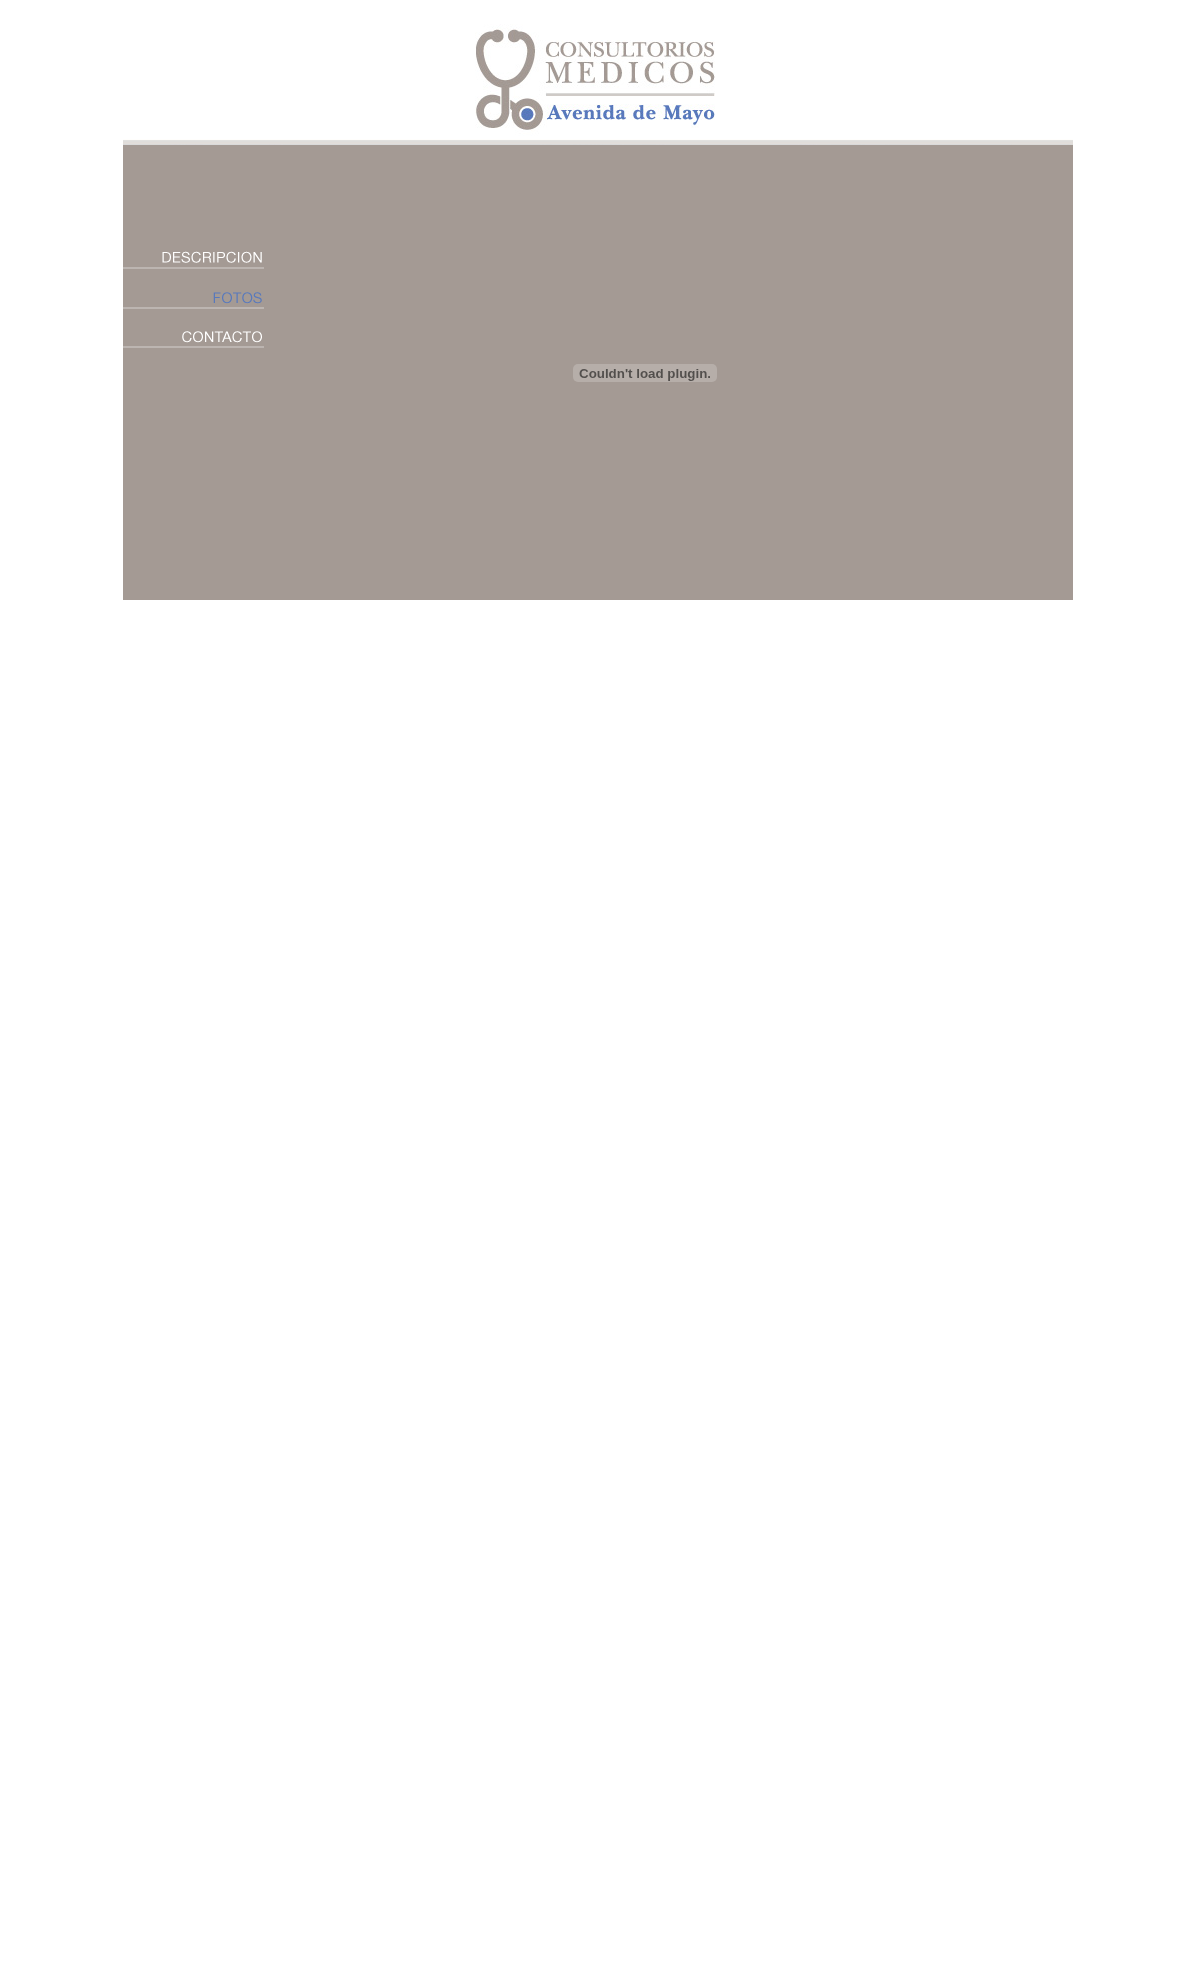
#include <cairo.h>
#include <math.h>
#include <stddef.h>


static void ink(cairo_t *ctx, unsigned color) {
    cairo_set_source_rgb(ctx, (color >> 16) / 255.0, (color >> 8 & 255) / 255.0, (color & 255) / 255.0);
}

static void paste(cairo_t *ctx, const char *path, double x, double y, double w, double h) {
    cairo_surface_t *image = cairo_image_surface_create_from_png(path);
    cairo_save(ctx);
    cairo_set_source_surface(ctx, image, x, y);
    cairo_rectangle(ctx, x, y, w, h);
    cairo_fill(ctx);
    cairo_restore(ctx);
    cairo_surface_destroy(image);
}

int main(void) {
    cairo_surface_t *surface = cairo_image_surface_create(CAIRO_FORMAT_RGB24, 1195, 1967);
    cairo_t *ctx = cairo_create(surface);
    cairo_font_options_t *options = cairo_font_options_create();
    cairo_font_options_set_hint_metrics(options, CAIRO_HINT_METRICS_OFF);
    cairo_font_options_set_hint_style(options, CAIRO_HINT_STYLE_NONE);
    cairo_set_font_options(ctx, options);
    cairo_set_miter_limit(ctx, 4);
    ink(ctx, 0xFFFFFF);
    cairo_paint(ctx);
    paste(ctx, "media/1.png", 123, 24, 950, 121);
    ink(ctx, 0xA49A94);
    cairo_rectangle(ctx, 123, 145, 950, 455);
    cairo_fill(ctx);
    paste(ctx, "media/2.png", 123, 251, 141, 18);
    paste(ctx, "media/3.png", 123, 292, 141, 17);
    paste(ctx, "media/4.png", 123, 331, 141, 17);
    paste(ctx, "media/5.png", 573, 364, 144, 18);
    cairo_surface_write_to_png(surface, "image.png");
    cairo_font_options_destroy(options);
    cairo_destroy(ctx);
    cairo_surface_destroy(surface);
    return 0;
}
